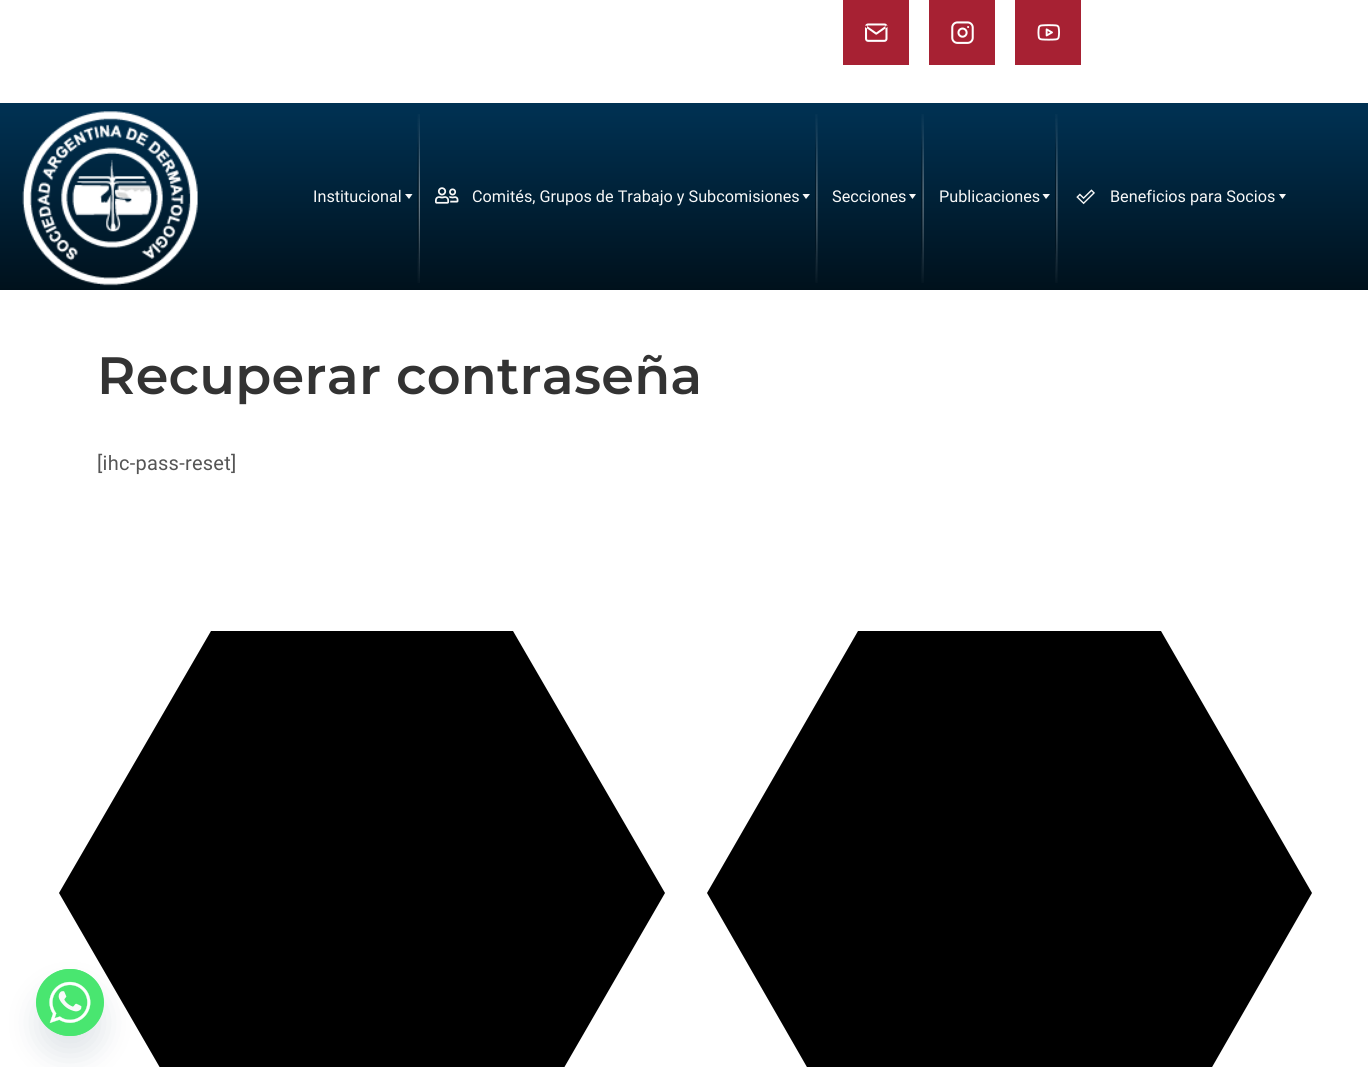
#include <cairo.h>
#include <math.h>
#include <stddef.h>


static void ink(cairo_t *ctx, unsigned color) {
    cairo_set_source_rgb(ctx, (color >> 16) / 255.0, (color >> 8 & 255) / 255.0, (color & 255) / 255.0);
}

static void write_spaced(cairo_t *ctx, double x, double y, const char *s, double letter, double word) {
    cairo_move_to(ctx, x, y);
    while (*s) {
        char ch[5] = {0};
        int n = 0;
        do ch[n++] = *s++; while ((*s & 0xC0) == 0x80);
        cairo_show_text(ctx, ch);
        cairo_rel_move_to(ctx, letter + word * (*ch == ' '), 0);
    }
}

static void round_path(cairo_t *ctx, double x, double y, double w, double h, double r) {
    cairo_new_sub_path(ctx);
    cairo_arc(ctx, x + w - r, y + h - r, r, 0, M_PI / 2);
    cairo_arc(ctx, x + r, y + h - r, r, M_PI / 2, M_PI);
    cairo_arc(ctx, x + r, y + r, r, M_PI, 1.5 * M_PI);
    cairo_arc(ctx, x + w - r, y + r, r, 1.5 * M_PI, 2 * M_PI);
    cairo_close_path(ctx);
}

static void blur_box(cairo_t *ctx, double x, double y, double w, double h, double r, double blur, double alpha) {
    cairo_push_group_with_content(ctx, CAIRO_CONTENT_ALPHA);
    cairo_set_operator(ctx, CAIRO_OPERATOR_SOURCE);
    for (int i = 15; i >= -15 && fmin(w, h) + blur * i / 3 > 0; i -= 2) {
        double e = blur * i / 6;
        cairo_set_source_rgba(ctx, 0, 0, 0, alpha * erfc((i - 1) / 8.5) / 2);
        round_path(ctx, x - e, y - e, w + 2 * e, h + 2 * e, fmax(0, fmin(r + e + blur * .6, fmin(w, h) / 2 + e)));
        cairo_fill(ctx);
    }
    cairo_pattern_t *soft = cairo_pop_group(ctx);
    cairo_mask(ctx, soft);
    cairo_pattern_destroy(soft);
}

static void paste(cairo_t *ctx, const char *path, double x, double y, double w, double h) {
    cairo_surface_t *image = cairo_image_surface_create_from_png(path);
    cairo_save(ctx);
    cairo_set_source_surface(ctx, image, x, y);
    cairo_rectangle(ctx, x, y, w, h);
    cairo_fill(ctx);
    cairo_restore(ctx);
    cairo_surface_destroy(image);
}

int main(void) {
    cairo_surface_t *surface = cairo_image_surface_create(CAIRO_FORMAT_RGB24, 1368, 1067);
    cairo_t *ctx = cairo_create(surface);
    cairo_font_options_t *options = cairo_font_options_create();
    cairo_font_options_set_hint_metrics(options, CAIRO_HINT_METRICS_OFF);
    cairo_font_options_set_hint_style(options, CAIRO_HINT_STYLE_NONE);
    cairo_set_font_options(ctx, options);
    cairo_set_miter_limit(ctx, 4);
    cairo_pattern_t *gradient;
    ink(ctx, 0xFFFFFF);
    cairo_paint(ctx);
    ink(ctx, 0xA72133);
    cairo_rectangle(ctx, 843, 0, 66, 65);
    cairo_fill(ctx);
    paste(ctx, "media/1.png", 865, 23, 23, 19);
    cairo_rectangle(ctx, 929, 0, 66, 65);
    cairo_fill(ctx);
    paste(ctx, "media/2.png", 951, 21, 23, 23);
    cairo_rectangle(ctx, 1015, 0, 66, 65);
    cairo_fill(ctx);
    paste(ctx, "media/3.png", 1037, 24, 23, 17);
    gradient = cairo_pattern_create_linear(684, 102, 684, 290);
    cairo_pattern_add_color_stop_rgba(gradient, 0, 0, 0.196, 0.329, 1);
    cairo_pattern_add_color_stop_rgba(gradient, 1, 0, 0.067, 0.11, 1);
    cairo_set_source(ctx, gradient);
    cairo_pattern_destroy(gradient);
    cairo_rectangle(ctx, 0, 103, 1368, 187);
    cairo_fill(ctx);
    paste(ctx, "media/4.png", 22, 111, 176, 175);
    cairo_select_font_face(ctx, "Roboto", CAIRO_FONT_SLANT_NORMAL, CAIRO_FONT_WEIGHT_NORMAL);
    cairo_set_font_size(ctx, 16.25);
    ink(ctx, 0xF8F8F8);
    cairo_move_to(ctx, 313, 202);
    cairo_show_text(ctx, "Institucional");
    cairo_new_path(ctx);
    cairo_move_to(ctx, 405, 194);
    cairo_line_to(ctx, 412.5, 194);
    cairo_line_to(ctx, 409, 199);
    cairo_close_path(ctx);
    cairo_fill(ctx);
    paste(ctx, "media/5.png", 417, 114, 3, 169);
    paste(ctx, "media/6.png", 435, 187, 24, 17);
    cairo_move_to(ctx, 472, 202);
    cairo_show_text(ctx, "Comités, Grupos de Trabajo y Subcomisiones");
    cairo_new_path(ctx);
    cairo_move_to(ctx, 802.5, 194);
    cairo_line_to(ctx, 810, 194);
    cairo_line_to(ctx, 806, 199);
    cairo_close_path(ctx);
    cairo_fill(ctx);
    paste(ctx, "media/7.png", 815, 114, 3, 169);
    cairo_move_to(ctx, 832, 202);
    cairo_show_text(ctx, "Secciones");
    cairo_new_path(ctx);
    cairo_move_to(ctx, 909, 194);
    cairo_line_to(ctx, 916, 194);
    cairo_line_to(ctx, 912.5, 199);
    cairo_close_path(ctx);
    cairo_fill(ctx);
    paste(ctx, "media/8.png", 921, 114, 3, 169);
    cairo_move_to(ctx, 939, 202);
    cairo_show_text(ctx, "Publicaciones");
    cairo_new_path(ctx);
    cairo_move_to(ctx, 1042.5, 194);
    cairo_line_to(ctx, 1050, 194);
    cairo_line_to(ctx, 1046, 199);
    cairo_close_path(ctx);
    cairo_fill(ctx);
    paste(ctx, "media/9.png", 1055, 114, 3, 169);
    paste(ctx, "media/10.png", 1076, 189, 19, 16);
    cairo_move_to(ctx, 1110, 202);
    cairo_show_text(ctx, "Beneficios para Socios");
    cairo_new_path(ctx);
    cairo_move_to(ctx, 1279, 194);
    cairo_line_to(ctx, 1286, 194);
    cairo_line_to(ctx, 1282.5, 199);
    cairo_close_path(ctx);
    cairo_fill(ctx);
    cairo_select_font_face(ctx, "Montserrat SemiBold", CAIRO_FONT_SLANT_NORMAL, CAIRO_FONT_WEIGHT_NORMAL);
    cairo_set_font_size(ctx, 52.5);
    ink(ctx, 0x333333);
    write_spaced(ctx, 97, 394, "Recuperar contraseña", 0.25, 0);
    cairo_select_font_face(ctx, "Roboto", CAIRO_FONT_SLANT_NORMAL, CAIRO_FONT_WEIGHT_NORMAL);
    cairo_set_font_size(ctx, 20);
    ink(ctx, 0x555555);
    write_spaced(ctx, 97, 470, "[ihc-pass-reset]", 0.25, 0);
    ink(ctx, 0x000000);
    cairo_new_path(ctx);
    cairo_move_to(ctx, 513, 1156);
    cairo_line_to(ctx, 211, 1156);
    cairo_line_to(ctx, 59, 893);
    cairo_line_to(ctx, 211, 631);
    cairo_line_to(ctx, 513, 631);
    cairo_line_to(ctx, 665, 893);
    cairo_close_path(ctx);
    cairo_fill(ctx);
    cairo_new_path(ctx);
    cairo_move_to(ctx, 1161, 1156);
    cairo_line_to(ctx, 858, 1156);
    cairo_line_to(ctx, 707, 893);
    cairo_line_to(ctx, 858, 631);
    cairo_line_to(ctx, 1161, 631);
    cairo_line_to(ctx, 1312, 893);
    cairo_close_path(ctx);
    cairo_fill(ctx);
    ink(ctx, 0x49687E);
    blur_box(ctx, 36, 989, 68, 67, 33.5, 15, 0.16);
    ink(ctx, 0x49E670);
    round_path(ctx, 36, 969, 68, 67, 33.5);
    cairo_fill(ctx);
    paste(ctx, "media/11.png", 36, 969, 68, 67);
    cairo_surface_write_to_png(surface, "image.png");
    cairo_font_options_destroy(options);
    cairo_destroy(ctx);
    cairo_surface_destroy(surface);
    return 0;
}
